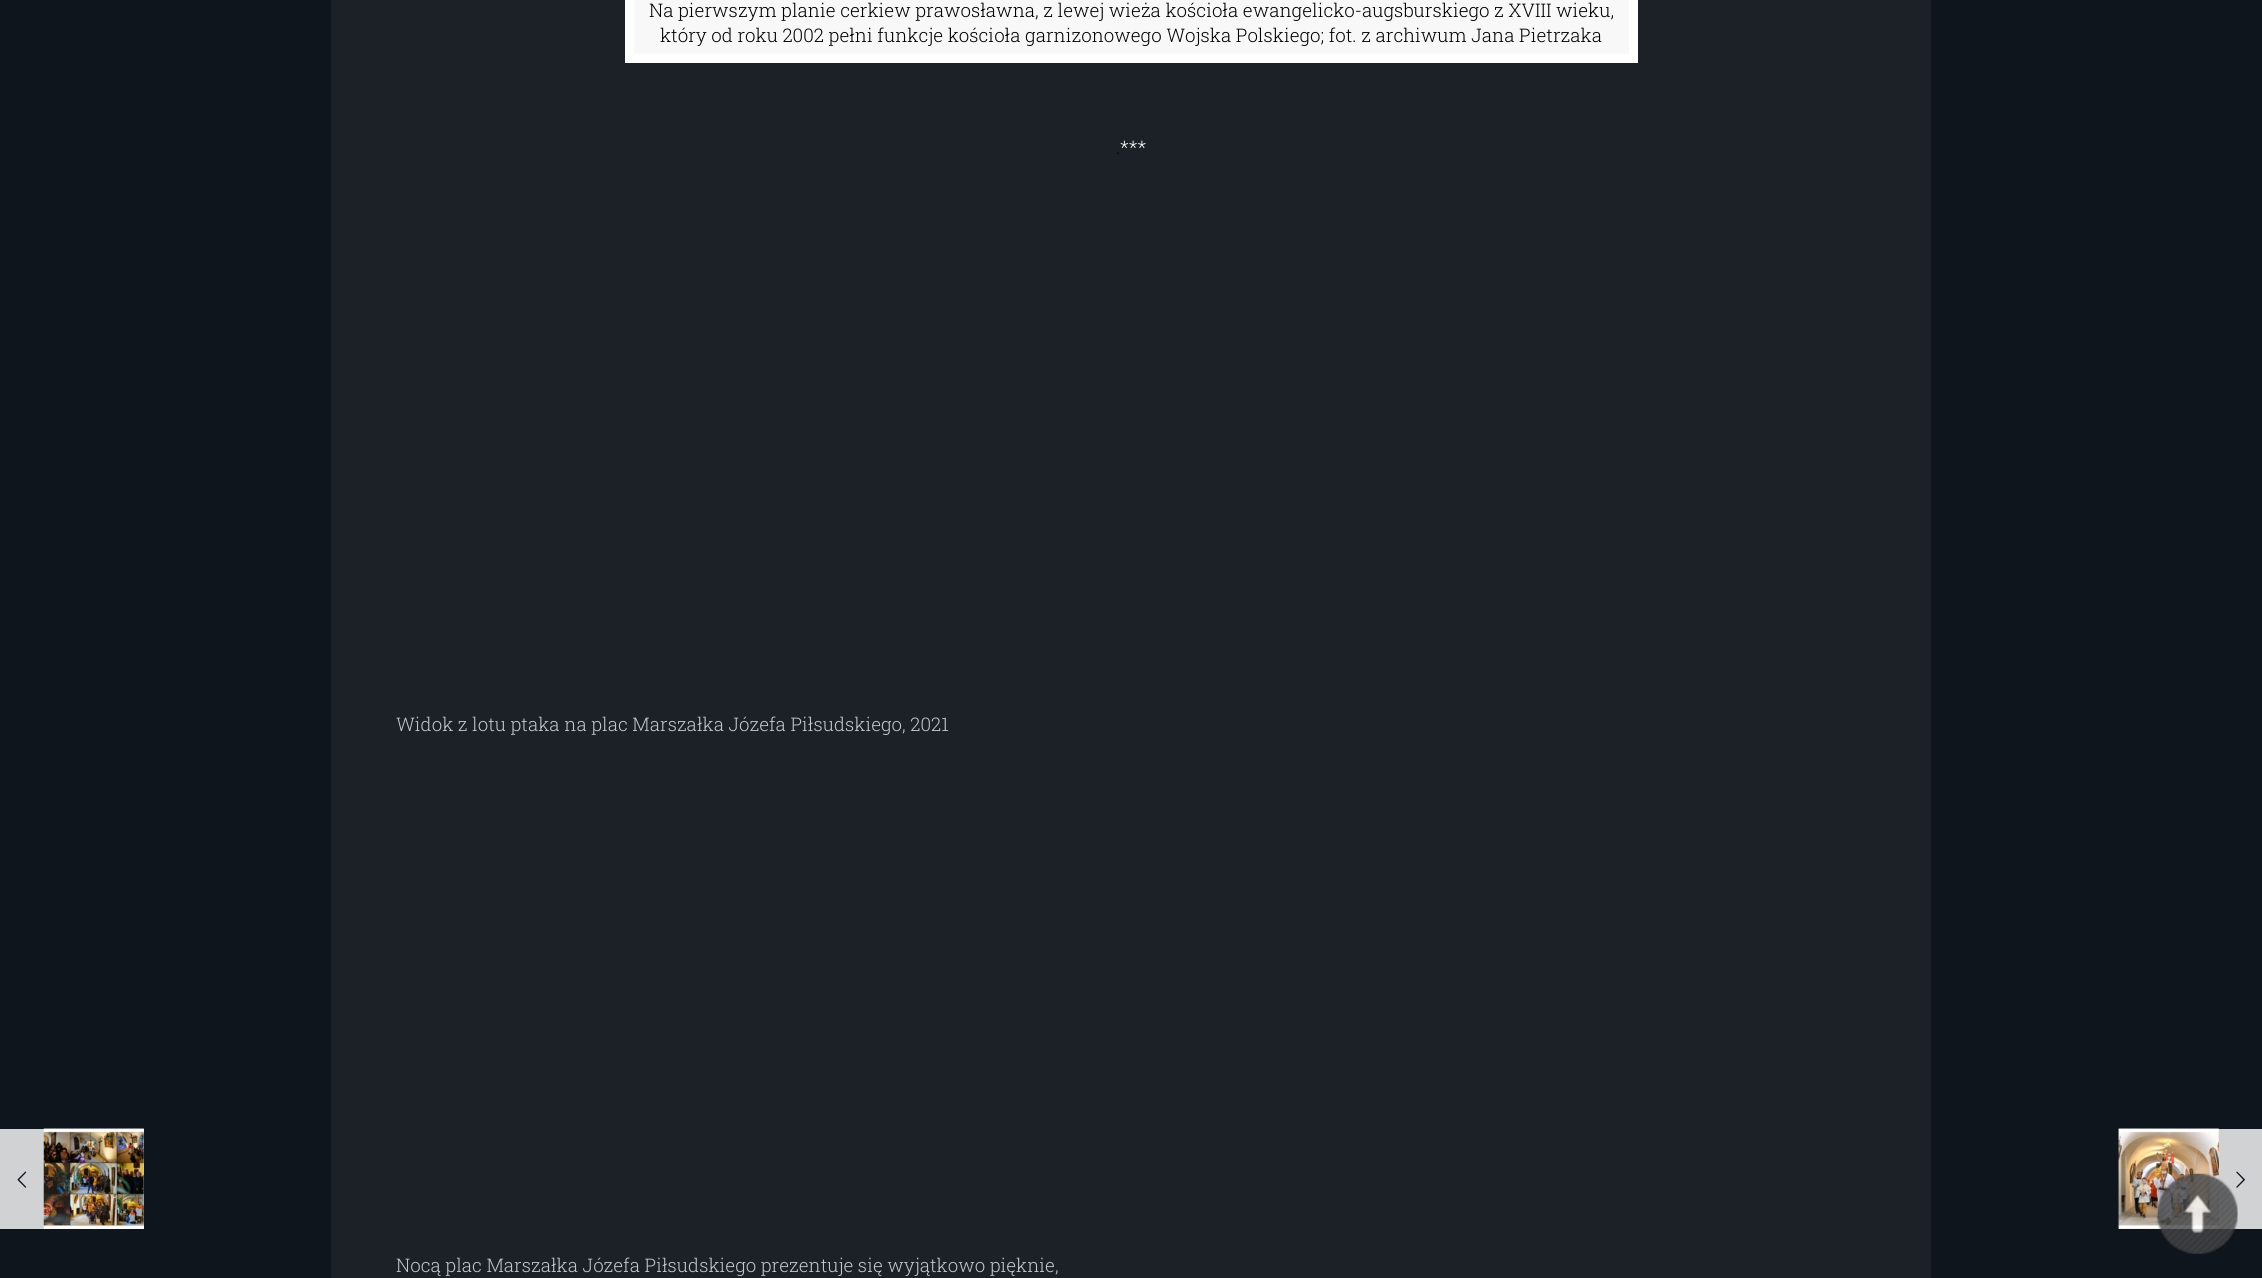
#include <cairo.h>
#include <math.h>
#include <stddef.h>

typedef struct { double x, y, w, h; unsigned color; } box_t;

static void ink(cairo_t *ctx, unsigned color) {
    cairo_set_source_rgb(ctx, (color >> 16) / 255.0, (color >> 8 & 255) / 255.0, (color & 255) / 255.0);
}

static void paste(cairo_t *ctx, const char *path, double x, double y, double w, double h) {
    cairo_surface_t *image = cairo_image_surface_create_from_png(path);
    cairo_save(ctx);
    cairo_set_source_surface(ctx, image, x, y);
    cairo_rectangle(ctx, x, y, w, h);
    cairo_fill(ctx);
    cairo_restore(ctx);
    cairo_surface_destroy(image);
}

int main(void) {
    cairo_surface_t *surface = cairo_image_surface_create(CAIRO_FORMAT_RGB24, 2262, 1278);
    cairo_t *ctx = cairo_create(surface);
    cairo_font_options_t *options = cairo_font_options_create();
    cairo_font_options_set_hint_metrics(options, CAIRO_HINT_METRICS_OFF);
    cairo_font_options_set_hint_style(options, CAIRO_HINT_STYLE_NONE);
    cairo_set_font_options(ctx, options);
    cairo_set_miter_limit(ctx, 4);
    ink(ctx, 0x0F151C);
    cairo_paint(ctx);
    ink(ctx, 0xD1D2D4);
    cairo_rectangle(ctx, 0, 1129, 44, 100);
    cairo_fill(ctx);
    paste(ctx, "media/1.png", 17, 1171, 10, 17);
    ink(ctx, 0xEEEEEE);
    cairo_rectangle(ctx, 44, 1129, 100, 100);
    cairo_fill(ctx);
    paste(ctx, "media/3.png", 43, 1128, 101, 1);
    paste(ctx, "media/2.png", 43, 1128, 101, 101);
    {
        static const box_t items[] = {
            {331, 0, 1600, 1278, 0x1C2127},
            {625, 0, 1013, 63, 0xFFFFFF},
            {634, 0, 995, 54, 0xF8F8F8},
        };
        for (size_t i = 0; i < sizeof items / sizeof *items; i++) {
            ink(ctx, items[i].color);
            cairo_rectangle(ctx, items[i].x, items[i].y, items[i].w, items[i].h);
            cairo_fill(ctx);
        }
    }
    cairo_select_font_face(ctx, "Roboto Slab Light", CAIRO_FONT_SLANT_NORMAL, CAIRO_FONT_WEIGHT_NORMAL);
    cairo_set_font_size(ctx, 18.75);
    ink(ctx, 0x000000);
    cairo_move_to(ctx, 649, 17);
    cairo_show_text(ctx, "Na pierwszym planie cerkiew prawosławna, z lewej wieża kościoła ewangelicko-augsburskiego z XVIII wieku,");
    cairo_move_to(ctx, 660, 42);
    cairo_show_text(ctx, "który od roku 2002 pełni funkcje kościoła garnizonowego Wojska Polskiego; fot. z archiwum Jana Pietrzaka");
    ink(ctx, 0xFFFFFF);
    cairo_move_to(ctx, 1120, 154);
    cairo_show_text(ctx, "***");
    ink(ctx, 0x000000);
    cairo_move_to(ctx, 1116, 154);
    cairo_show_text(ctx, ".");
    ink(ctx, 0xC3C8CE);
    cairo_move_to(ctx, 396, 731);
    cairo_show_text(ctx, "Widok z lotu ptaka na plac Marszałka Józefa Piłsudskiego, 2021");
    cairo_move_to(ctx, 396, 1272);
    cairo_show_text(ctx, "Nocą plac Marszałka Józefa Piłsudskiego prezentuje się wyjątkowo pięknie,");
    paste(ctx, "media/4.png", 2118, 1128, 101, 101);
    paste(ctx, "media/5.png", 2118, 1128, 101, 101);
    ink(ctx, 0xD1D2D4);
    cairo_rectangle(ctx, 2219, 1129, 43, 100);
    cairo_fill(ctx);
    paste(ctx, "media/6.png", 2236, 1171, 9, 17);
    paste(ctx, "media/7.png", 2157, 1173, 81, 81);
    cairo_surface_write_to_png(surface, "image.png");
    cairo_font_options_destroy(options);
    cairo_destroy(ctx);
    cairo_surface_destroy(surface);
    return 0;
}
